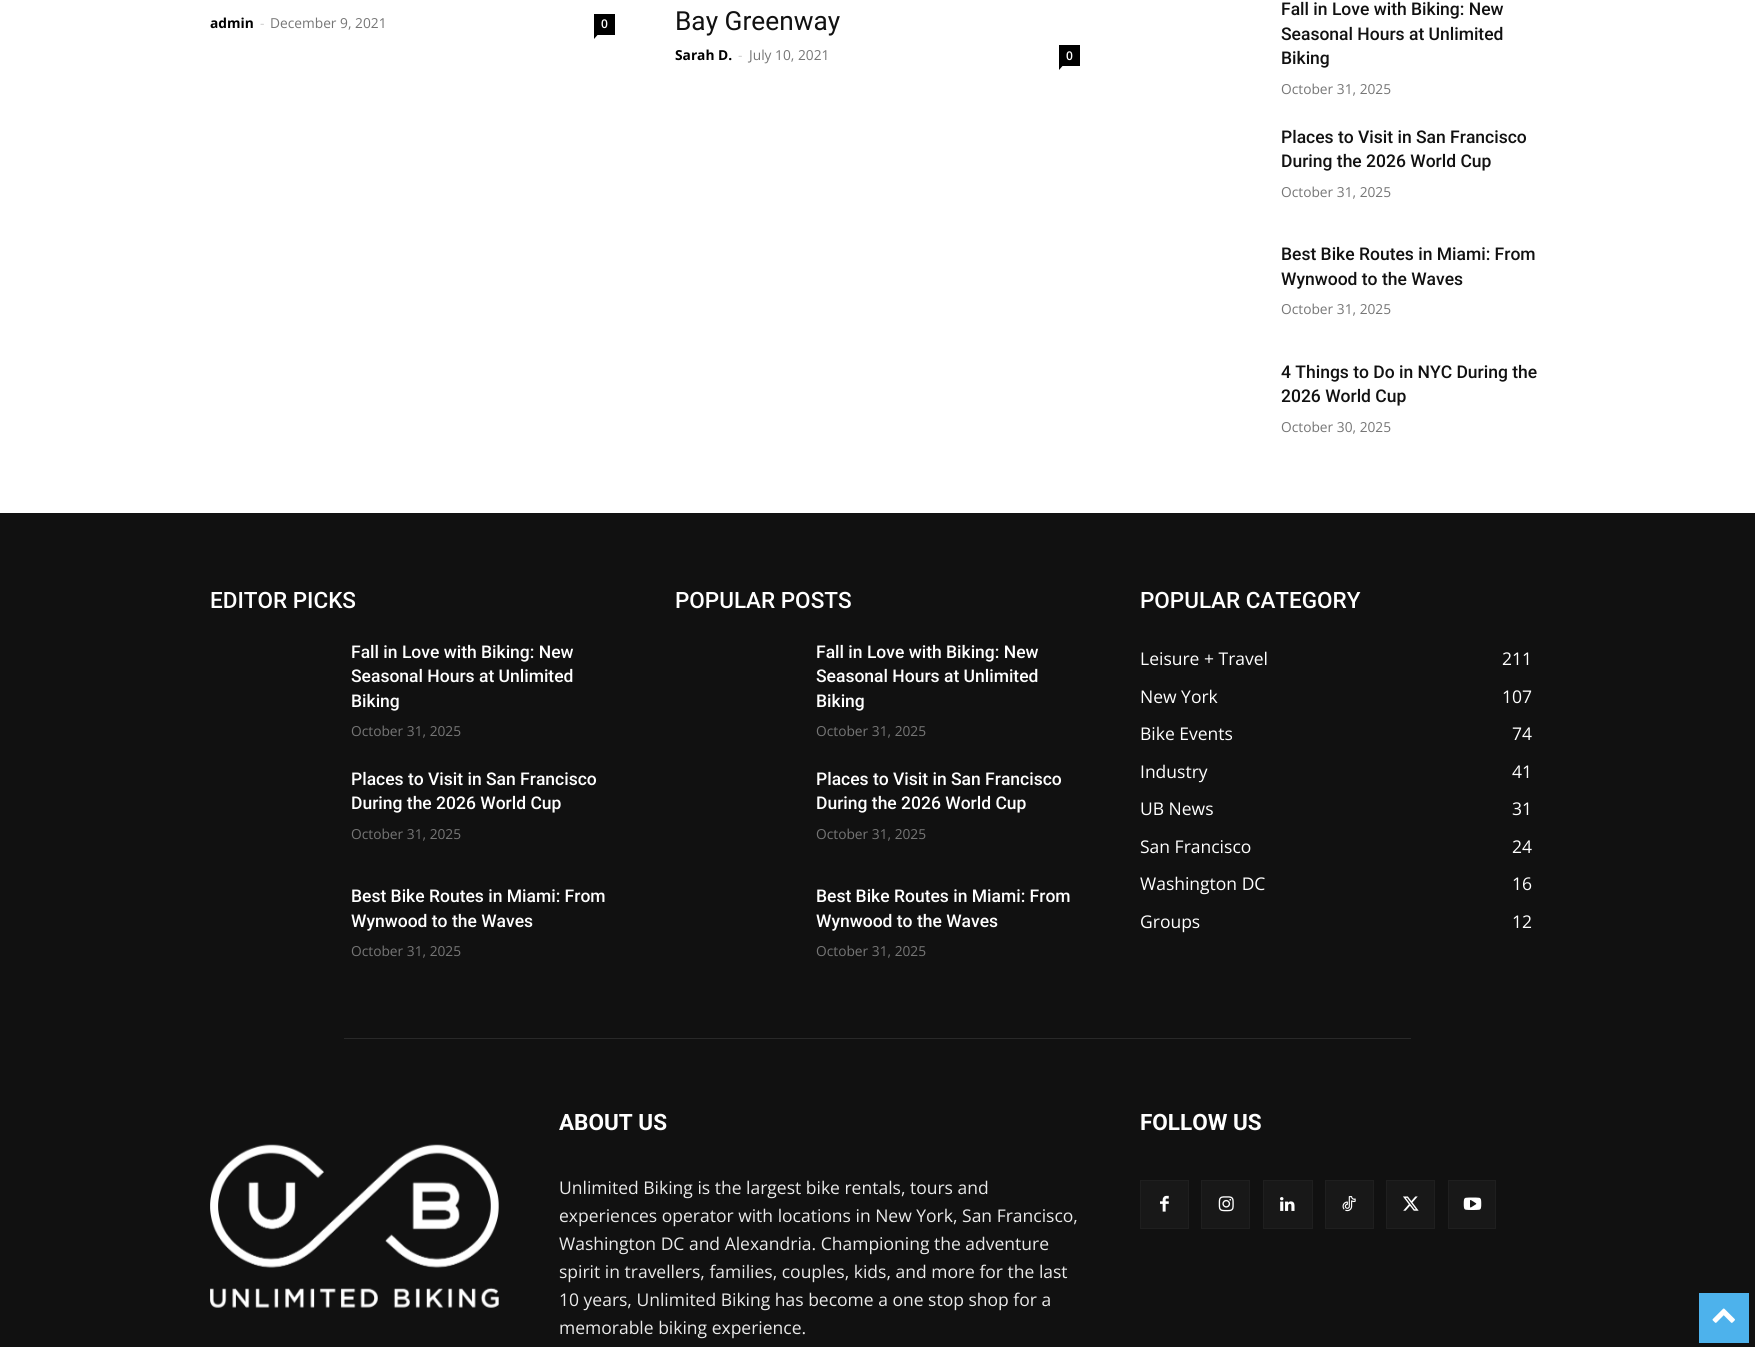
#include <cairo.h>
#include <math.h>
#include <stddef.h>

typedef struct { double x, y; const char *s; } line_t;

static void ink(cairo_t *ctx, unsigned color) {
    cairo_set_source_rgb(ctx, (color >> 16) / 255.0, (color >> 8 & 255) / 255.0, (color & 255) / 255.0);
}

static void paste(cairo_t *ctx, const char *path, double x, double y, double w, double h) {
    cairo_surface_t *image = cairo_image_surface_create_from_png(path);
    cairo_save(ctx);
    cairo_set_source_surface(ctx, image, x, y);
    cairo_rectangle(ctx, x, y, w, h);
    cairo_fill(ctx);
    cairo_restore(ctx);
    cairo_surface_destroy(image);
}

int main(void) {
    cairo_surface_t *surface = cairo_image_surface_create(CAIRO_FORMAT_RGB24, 1755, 1347);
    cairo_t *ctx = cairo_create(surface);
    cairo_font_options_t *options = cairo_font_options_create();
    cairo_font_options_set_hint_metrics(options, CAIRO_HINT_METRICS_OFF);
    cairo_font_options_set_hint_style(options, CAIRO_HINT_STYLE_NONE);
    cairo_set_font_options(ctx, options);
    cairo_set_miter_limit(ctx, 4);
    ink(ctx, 0xFFFFFF);
    cairo_paint(ctx);
    cairo_select_font_face(ctx, "Open Sans", CAIRO_FONT_SLANT_NORMAL, CAIRO_FONT_WEIGHT_BOLD);
    cairo_set_font_size(ctx, 13.75);
    ink(ctx, 0x000000);
    cairo_move_to(ctx, 210, 28);
    cairo_show_text(ctx, "admin");
    cairo_select_font_face(ctx, "Open Sans", CAIRO_FONT_SLANT_NORMAL, CAIRO_FONT_WEIGHT_NORMAL);
    ink(ctx, 0xCCCCCC);
    cairo_move_to(ctx, 260, 28);
    cairo_show_text(ctx, "-");
    ink(ctx, 0x767676);
    cairo_move_to(ctx, 270, 28);
    cairo_show_text(ctx, "December 9, 2021");
    ink(ctx, 0x000000);
    cairo_rectangle(ctx, 594, 14, 21, 21);
    cairo_fill(ctx);
    cairo_select_font_face(ctx, "Open Sans SemiBold", CAIRO_FONT_SLANT_NORMAL, CAIRO_FONT_WEIGHT_NORMAL);
    cairo_set_font_size(ctx, 12);
    ink(ctx, 0xFFFFFF);
    cairo_move_to(ctx, 601, 28);
    cairo_show_text(ctx, "0");
    ink(ctx, 0x000000);
    cairo_new_path(ctx);
    cairo_move_to(ctx, 594, 35);
    cairo_line_to(ctx, 597.5, 35);
    cairo_line_to(ctx, 594, 39);
    cairo_close_path(ctx);
    cairo_fill(ctx);
    cairo_select_font_face(ctx, "Roboto", CAIRO_FONT_SLANT_NORMAL, CAIRO_FONT_WEIGHT_NORMAL);
    cairo_set_font_size(ctx, 26.25);
    ink(ctx, 0x111111);
    cairo_move_to(ctx, 675, 30);
    cairo_show_text(ctx, "Bay Greenway");
    cairo_select_font_face(ctx, "Open Sans", CAIRO_FONT_SLANT_NORMAL, CAIRO_FONT_WEIGHT_BOLD);
    cairo_set_font_size(ctx, 13.75);
    ink(ctx, 0x000000);
    cairo_move_to(ctx, 675, 60);
    cairo_show_text(ctx, "Sarah D.");
    cairo_select_font_face(ctx, "Open Sans", CAIRO_FONT_SLANT_NORMAL, CAIRO_FONT_WEIGHT_NORMAL);
    ink(ctx, 0xCCCCCC);
    cairo_move_to(ctx, 738, 60);
    cairo_show_text(ctx, "-");
    ink(ctx, 0x767676);
    cairo_move_to(ctx, 749, 60);
    cairo_show_text(ctx, "July 10, 2021");
    ink(ctx, 0x000000);
    cairo_rectangle(ctx, 1059, 45, 21, 21);
    cairo_fill(ctx);
    cairo_select_font_face(ctx, "Open Sans SemiBold", CAIRO_FONT_SLANT_NORMAL, CAIRO_FONT_WEIGHT_NORMAL);
    cairo_set_font_size(ctx, 12);
    ink(ctx, 0xFFFFFF);
    cairo_move_to(ctx, 1066, 60);
    cairo_show_text(ctx, "0");
    ink(ctx, 0x000000);
    cairo_new_path(ctx);
    cairo_move_to(ctx, 1059, 66);
    cairo_line_to(ctx, 1062.5, 66);
    cairo_line_to(ctx, 1059, 70);
    cairo_close_path(ctx);
    cairo_fill(ctx);
    cairo_select_font_face(ctx, "Roboto Medium", CAIRO_FONT_SLANT_NORMAL, CAIRO_FONT_WEIGHT_NORMAL);
    cairo_set_font_size(ctx, 17.5);
    ink(ctx, 0x111111);
    {
        static const line_t items[] = {
            {1281, 15, "Fall in Love with Biking: New"},
            {1281, 40, "Seasonal Hours at Unlimited"},
            {1281, 64, "Biking"},
        };
        for (size_t i = 0; i < sizeof items / sizeof *items; i++) {
            cairo_move_to(ctx, items[i].x, items[i].y);
            cairo_show_text(ctx, items[i].s);
        }
    }
    cairo_select_font_face(ctx, "Open Sans", CAIRO_FONT_SLANT_NORMAL, CAIRO_FONT_WEIGHT_NORMAL);
    cairo_set_font_size(ctx, 13.75);
    ink(ctx, 0x767676);
    cairo_move_to(ctx, 1281, 94);
    cairo_show_text(ctx, "October 31, 2025");
    cairo_select_font_face(ctx, "Roboto Medium", CAIRO_FONT_SLANT_NORMAL, CAIRO_FONT_WEIGHT_NORMAL);
    cairo_set_font_size(ctx, 17.5);
    ink(ctx, 0x111111);
    cairo_move_to(ctx, 1281, 143);
    cairo_show_text(ctx, "Places to Visit in San Francisco");
    cairo_move_to(ctx, 1281, 167);
    cairo_show_text(ctx, "During the 2026 World Cup");
    cairo_select_font_face(ctx, "Open Sans", CAIRO_FONT_SLANT_NORMAL, CAIRO_FONT_WEIGHT_NORMAL);
    cairo_set_font_size(ctx, 13.75);
    ink(ctx, 0x767676);
    cairo_move_to(ctx, 1281, 197);
    cairo_show_text(ctx, "October 31, 2025");
    cairo_select_font_face(ctx, "Roboto Medium", CAIRO_FONT_SLANT_NORMAL, CAIRO_FONT_WEIGHT_NORMAL);
    cairo_set_font_size(ctx, 17.5);
    ink(ctx, 0x111111);
    cairo_move_to(ctx, 1281, 260);
    cairo_show_text(ctx, "Best Bike Routes in Miami: From");
    cairo_move_to(ctx, 1281, 285);
    cairo_show_text(ctx, "Wynwood to the Waves");
    cairo_select_font_face(ctx, "Open Sans", CAIRO_FONT_SLANT_NORMAL, CAIRO_FONT_WEIGHT_NORMAL);
    cairo_set_font_size(ctx, 13.75);
    ink(ctx, 0x767676);
    cairo_move_to(ctx, 1281, 314);
    cairo_show_text(ctx, "October 31, 2025");
    cairo_select_font_face(ctx, "Roboto Medium", CAIRO_FONT_SLANT_NORMAL, CAIRO_FONT_WEIGHT_NORMAL);
    cairo_set_font_size(ctx, 17.5);
    ink(ctx, 0x111111);
    cairo_move_to(ctx, 1281, 378);
    cairo_show_text(ctx, "4 Things to Do in NYC During the");
    cairo_move_to(ctx, 1281, 402);
    cairo_show_text(ctx, "2026 World Cup");
    cairo_select_font_face(ctx, "Open Sans", CAIRO_FONT_SLANT_NORMAL, CAIRO_FONT_WEIGHT_NORMAL);
    cairo_set_font_size(ctx, 13.75);
    ink(ctx, 0x767676);
    cairo_move_to(ctx, 1281, 432);
    cairo_show_text(ctx, "October 30, 2025");
    ink(ctx, 0x111111);
    cairo_rectangle(ctx, 0, 513, 1755, 834);
    cairo_fill(ctx);
    cairo_select_font_face(ctx, "Roboto Medium", CAIRO_FONT_SLANT_NORMAL, CAIRO_FONT_WEIGHT_NORMAL);
    cairo_set_font_size(ctx, 22.5);
    ink(ctx, 0xFFFFFF);
    cairo_move_to(ctx, 210, 608);
    cairo_show_text(ctx, "EDITOR PICKS");
    cairo_set_font_size(ctx, 17.5);
    {
        static const line_t items[] = {
            {351, 658, "Fall in Love with Biking: New"},
            {351, 682, "Seasonal Hours at Unlimited"},
            {351, 707, "Biking"},
        };
        for (size_t i = 0; i < sizeof items / sizeof *items; i++) {
            cairo_move_to(ctx, items[i].x, items[i].y);
            cairo_show_text(ctx, items[i].s);
        }
    }
    cairo_select_font_face(ctx, "Open Sans", CAIRO_FONT_SLANT_NORMAL, CAIRO_FONT_WEIGHT_NORMAL);
    cairo_set_font_size(ctx, 13.75);
    ink(ctx, 0x767676);
    cairo_move_to(ctx, 351, 736);
    cairo_show_text(ctx, "October 31, 2025");
    cairo_select_font_face(ctx, "Roboto Medium", CAIRO_FONT_SLANT_NORMAL, CAIRO_FONT_WEIGHT_NORMAL);
    cairo_set_font_size(ctx, 17.5);
    ink(ctx, 0xFFFFFF);
    cairo_move_to(ctx, 351, 785);
    cairo_show_text(ctx, "Places to Visit in San Francisco");
    cairo_move_to(ctx, 351, 809);
    cairo_show_text(ctx, "During the 2026 World Cup");
    cairo_select_font_face(ctx, "Open Sans", CAIRO_FONT_SLANT_NORMAL, CAIRO_FONT_WEIGHT_NORMAL);
    cairo_set_font_size(ctx, 13.75);
    ink(ctx, 0x767676);
    cairo_move_to(ctx, 351, 839);
    cairo_show_text(ctx, "October 31, 2025");
    cairo_select_font_face(ctx, "Roboto Medium", CAIRO_FONT_SLANT_NORMAL, CAIRO_FONT_WEIGHT_NORMAL);
    cairo_set_font_size(ctx, 17.5);
    ink(ctx, 0xFFFFFF);
    cairo_move_to(ctx, 351, 902);
    cairo_show_text(ctx, "Best Bike Routes in Miami: From");
    cairo_move_to(ctx, 351, 927);
    cairo_show_text(ctx, "Wynwood to the Waves");
    cairo_select_font_face(ctx, "Open Sans", CAIRO_FONT_SLANT_NORMAL, CAIRO_FONT_WEIGHT_NORMAL);
    cairo_set_font_size(ctx, 13.75);
    ink(ctx, 0x767676);
    cairo_move_to(ctx, 351, 956);
    cairo_show_text(ctx, "October 31, 2025");
    cairo_select_font_face(ctx, "Roboto Medium", CAIRO_FONT_SLANT_NORMAL, CAIRO_FONT_WEIGHT_NORMAL);
    cairo_set_font_size(ctx, 22.5);
    ink(ctx, 0xFFFFFF);
    cairo_move_to(ctx, 675, 608);
    cairo_show_text(ctx, "POPULAR POSTS");
    cairo_set_font_size(ctx, 17.5);
    {
        static const line_t items[] = {
            {816, 658, "Fall in Love with Biking: New"},
            {816, 682, "Seasonal Hours at Unlimited"},
            {816, 707, "Biking"},
        };
        for (size_t i = 0; i < sizeof items / sizeof *items; i++) {
            cairo_move_to(ctx, items[i].x, items[i].y);
            cairo_show_text(ctx, items[i].s);
        }
    }
    cairo_select_font_face(ctx, "Open Sans", CAIRO_FONT_SLANT_NORMAL, CAIRO_FONT_WEIGHT_NORMAL);
    cairo_set_font_size(ctx, 13.75);
    ink(ctx, 0x767676);
    cairo_move_to(ctx, 816, 736);
    cairo_show_text(ctx, "October 31, 2025");
    cairo_select_font_face(ctx, "Roboto Medium", CAIRO_FONT_SLANT_NORMAL, CAIRO_FONT_WEIGHT_NORMAL);
    cairo_set_font_size(ctx, 17.5);
    ink(ctx, 0xFFFFFF);
    cairo_move_to(ctx, 816, 785);
    cairo_show_text(ctx, "Places to Visit in San Francisco");
    cairo_move_to(ctx, 816, 809);
    cairo_show_text(ctx, "During the 2026 World Cup");
    cairo_select_font_face(ctx, "Open Sans", CAIRO_FONT_SLANT_NORMAL, CAIRO_FONT_WEIGHT_NORMAL);
    cairo_set_font_size(ctx, 13.75);
    ink(ctx, 0x767676);
    cairo_move_to(ctx, 816, 839);
    cairo_show_text(ctx, "October 31, 2025");
    cairo_select_font_face(ctx, "Roboto Medium", CAIRO_FONT_SLANT_NORMAL, CAIRO_FONT_WEIGHT_NORMAL);
    cairo_set_font_size(ctx, 17.5);
    ink(ctx, 0xFFFFFF);
    cairo_move_to(ctx, 816, 902);
    cairo_show_text(ctx, "Best Bike Routes in Miami: From");
    cairo_move_to(ctx, 816, 927);
    cairo_show_text(ctx, "Wynwood to the Waves");
    cairo_select_font_face(ctx, "Open Sans", CAIRO_FONT_SLANT_NORMAL, CAIRO_FONT_WEIGHT_NORMAL);
    cairo_set_font_size(ctx, 13.75);
    ink(ctx, 0x767676);
    cairo_move_to(ctx, 816, 956);
    cairo_show_text(ctx, "October 31, 2025");
    cairo_select_font_face(ctx, "Roboto Medium", CAIRO_FONT_SLANT_NORMAL, CAIRO_FONT_WEIGHT_NORMAL);
    cairo_set_font_size(ctx, 22.5);
    ink(ctx, 0xFFFFFF);
    cairo_move_to(ctx, 1140, 608);
    cairo_show_text(ctx, "POPULAR CATEGORY");
    cairo_select_font_face(ctx, "Open Sans", CAIRO_FONT_SLANT_NORMAL, CAIRO_FONT_WEIGHT_NORMAL);
    cairo_set_font_size(ctx, 17.5);
    {
        static const line_t items[] = {
            {1140, 665, "Leisure + Travel"},
            {1502, 665, "211"},
            {1140, 703, "New York"},
            {1502, 703, "107"},
            {1140, 740, "Bike Events"},
            {1512, 740, "74"},
            {1140, 778, "Industry"},
            {1512, 778, "41"},
            {1140, 815, "UB News"},
            {1512, 815, "31"},
            {1140, 853, "San Francisco"},
            {1512, 853, "24"},
            {1140, 890, "Washington DC"},
            {1512, 890, "16"},
            {1140, 928, "Groups"},
            {1512, 928, "12"},
        };
        for (size_t i = 0; i < sizeof items / sizeof *items; i++) {
            cairo_move_to(ctx, items[i].x, items[i].y);
            cairo_show_text(ctx, items[i].s);
        }
    }
    ink(ctx, 0x292929);
    cairo_rectangle(ctx, 344, 1038, 1067, 1);
    cairo_fill(ctx);
    cairo_select_font_face(ctx, "Roboto", CAIRO_FONT_SLANT_NORMAL, CAIRO_FONT_WEIGHT_BOLD);
    cairo_set_font_size(ctx, 22.5);
    ink(ctx, 0xFFFFFF);
    cairo_move_to(ctx, 559, 1130);
    cairo_show_text(ctx, "ABOUT US");
    cairo_select_font_face(ctx, "Open Sans", CAIRO_FONT_SLANT_NORMAL, CAIRO_FONT_WEIGHT_NORMAL);
    cairo_set_font_size(ctx, 17.5);
    ink(ctx, 0xEAEAEA);
    {
        static const line_t items[] = {
            {559, 1194, "Unlimited Biking is the largest bike rentals, tours and"},
            {559, 1222, "experiences operator with locations in New York, San Francisco,"},
            {559, 1250, "Washington DC and Alexandria. Championing the adventure"},
            {559, 1278, "spirit in travellers, families, couples, kids, and more for the last"},
            {559, 1306, "10 years, Unlimited Biking has become a one stop shop for a"},
            {559, 1334, "memorable biking experience."},
        };
        for (size_t i = 0; i < sizeof items / sizeof *items; i++) {
            cairo_move_to(ctx, items[i].x, items[i].y);
            cairo_show_text(ctx, items[i].s);
        }
    }
    cairo_select_font_face(ctx, "Roboto", CAIRO_FONT_SLANT_NORMAL, CAIRO_FONT_WEIGHT_BOLD);
    cairo_set_font_size(ctx, 22.5);
    ink(ctx, 0xFFFFFF);
    cairo_move_to(ctx, 1140, 1130);
    cairo_show_text(ctx, "FOLLOW US");
    ink(ctx, 0x181818);
    cairo_rectangle(ctx, 1140.5, 1180.5, 48, 48);
    cairo_fill_preserve(ctx);
    ink(ctx, 0x1F1F1F);
    cairo_set_line_width(ctx, 1);
    cairo_stroke(ctx);
    paste(ctx, "media/1.png", 1160, 1195, 9, 17);
    ink(ctx, 0x181818);
    cairo_rectangle(ctx, 1201.5, 1180.5, 48, 48);
    cairo_fill_preserve(ctx);
    ink(ctx, 0x1F1F1F);
    cairo_stroke(ctx);
    paste(ctx, "media/2.png", 1218, 1196, 16, 16);
    ink(ctx, 0x181818);
    cairo_rectangle(ctx, 1263.5, 1180.5, 49, 48);
    cairo_fill_preserve(ctx);
    ink(ctx, 0x1F1F1F);
    cairo_stroke(ctx);
    paste(ctx, "media/3.png", 1280, 1197, 15, 14);
    ink(ctx, 0x181818);
    cairo_rectangle(ctx, 1325.5, 1180.5, 48, 48);
    cairo_fill_preserve(ctx);
    ink(ctx, 0x1F1F1F);
    cairo_stroke(ctx);
    paste(ctx, "media/4.png", 1342, 1196, 14, 16);
    ink(ctx, 0x181818);
    cairo_rectangle(ctx, 1386.5, 1180.5, 48, 48);
    cairo_fill_preserve(ctx);
    ink(ctx, 0x1F1F1F);
    cairo_stroke(ctx);
    paste(ctx, "media/5.png", 1403, 1196, 16, 15);
    ink(ctx, 0x181818);
    cairo_rectangle(ctx, 1448.5, 1180.5, 47, 48);
    cairo_fill_preserve(ctx);
    ink(ctx, 0x1F1F1F);
    cairo_stroke(ctx);
    paste(ctx, "media/6.png", 1463, 1197, 19, 13);
    paste(ctx, "media/7.png", 210, 1144, 289, 164);
    ink(ctx, 0x4DB2EC);
    cairo_rectangle(ctx, 1699, 1293, 50, 50);
    cairo_fill(ctx);
    paste(ctx, "media/8.png", 1712, 1308, 23, 15);
    cairo_surface_write_to_png(surface, "image.png");
    cairo_font_options_destroy(options);
    cairo_destroy(ctx);
    cairo_surface_destroy(surface);
    return 0;
}
